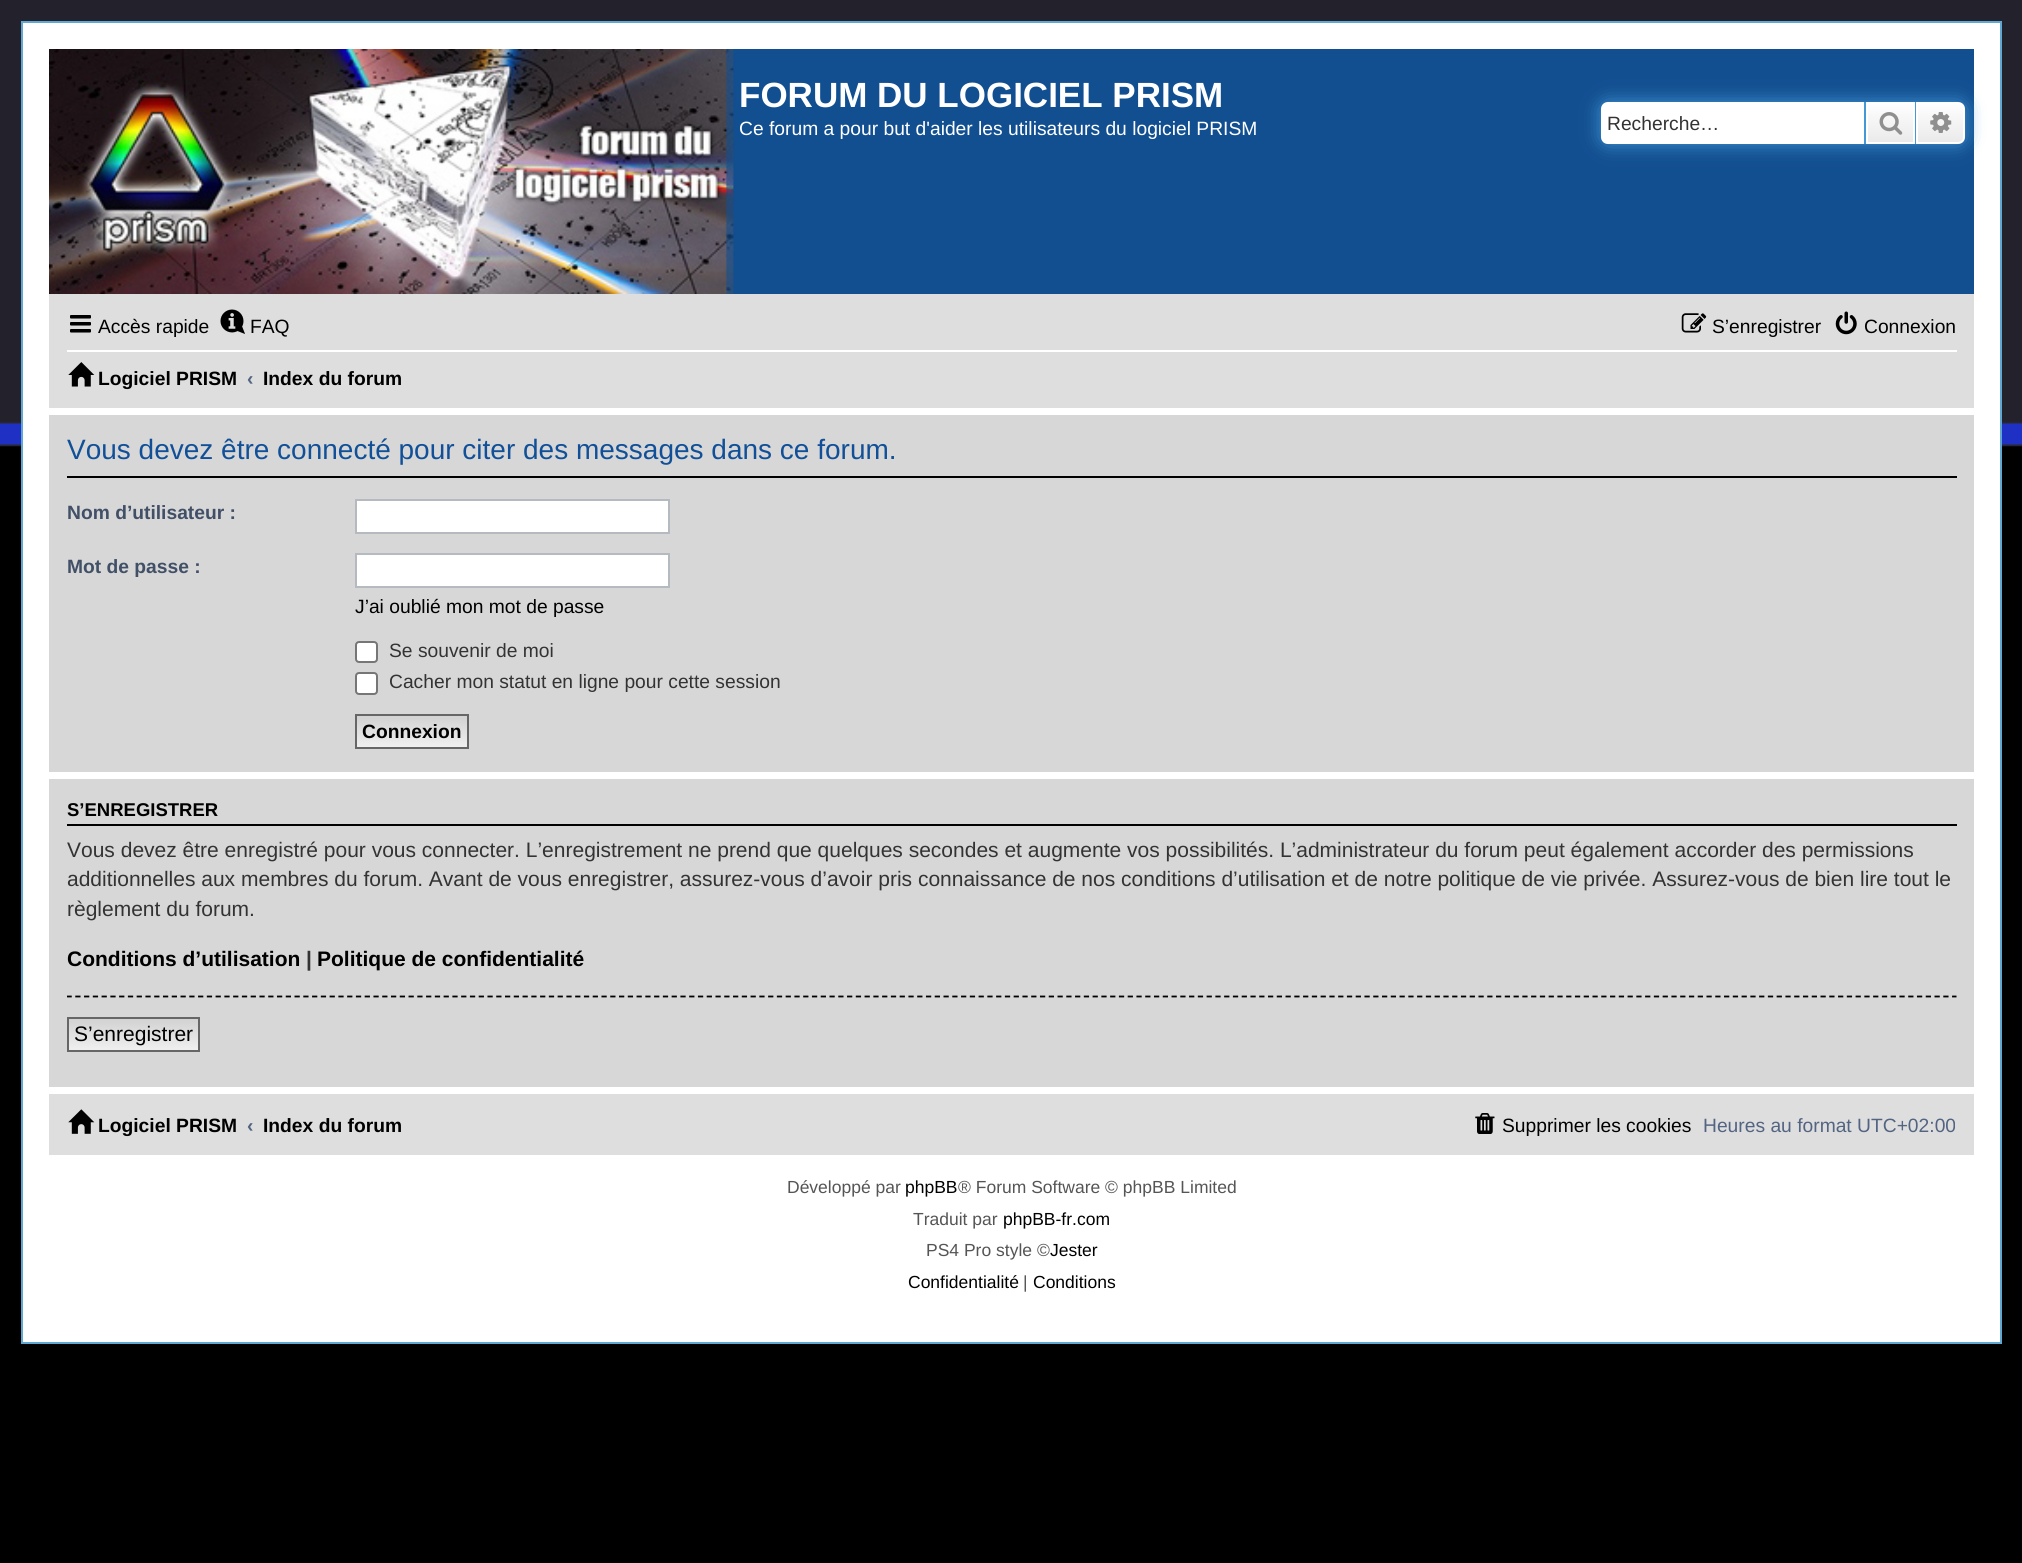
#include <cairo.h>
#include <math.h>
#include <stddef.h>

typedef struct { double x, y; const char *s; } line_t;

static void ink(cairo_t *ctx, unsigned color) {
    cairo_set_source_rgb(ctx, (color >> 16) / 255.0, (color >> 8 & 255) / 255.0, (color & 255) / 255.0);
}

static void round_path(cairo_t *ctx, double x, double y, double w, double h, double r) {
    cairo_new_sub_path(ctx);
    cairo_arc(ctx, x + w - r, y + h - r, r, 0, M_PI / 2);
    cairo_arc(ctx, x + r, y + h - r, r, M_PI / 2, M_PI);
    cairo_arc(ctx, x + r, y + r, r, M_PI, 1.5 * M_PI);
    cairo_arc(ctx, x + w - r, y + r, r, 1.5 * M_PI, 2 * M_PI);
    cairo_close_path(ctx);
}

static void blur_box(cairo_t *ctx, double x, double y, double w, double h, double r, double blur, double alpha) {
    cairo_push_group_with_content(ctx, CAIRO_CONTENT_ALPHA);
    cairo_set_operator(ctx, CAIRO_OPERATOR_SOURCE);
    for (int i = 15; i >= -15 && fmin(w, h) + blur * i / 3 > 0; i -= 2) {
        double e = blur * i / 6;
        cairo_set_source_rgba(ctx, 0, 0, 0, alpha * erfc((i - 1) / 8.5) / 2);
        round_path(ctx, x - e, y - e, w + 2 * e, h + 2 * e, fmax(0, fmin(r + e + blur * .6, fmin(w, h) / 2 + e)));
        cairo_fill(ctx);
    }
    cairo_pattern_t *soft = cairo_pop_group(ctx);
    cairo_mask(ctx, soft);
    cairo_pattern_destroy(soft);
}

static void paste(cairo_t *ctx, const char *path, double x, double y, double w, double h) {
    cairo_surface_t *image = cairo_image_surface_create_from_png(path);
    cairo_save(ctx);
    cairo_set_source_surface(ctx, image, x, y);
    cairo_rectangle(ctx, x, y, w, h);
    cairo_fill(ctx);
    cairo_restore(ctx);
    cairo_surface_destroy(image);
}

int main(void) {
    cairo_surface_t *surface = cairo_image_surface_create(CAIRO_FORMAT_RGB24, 2022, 1563);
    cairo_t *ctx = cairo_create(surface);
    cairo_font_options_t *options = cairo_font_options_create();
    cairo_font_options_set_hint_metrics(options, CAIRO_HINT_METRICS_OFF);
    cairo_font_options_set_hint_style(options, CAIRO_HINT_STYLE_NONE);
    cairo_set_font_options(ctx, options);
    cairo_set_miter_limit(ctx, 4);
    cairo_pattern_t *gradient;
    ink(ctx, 0x000000);
    cairo_paint(ctx);
    paste(ctx, "media/1.png", 0, 0, 2022, 447);
    ink(ctx, 0xFFFFFF);
    cairo_rectangle(ctx, 22, 22, 1979, 1321);
    cairo_fill_preserve(ctx);
    ink(ctx, 0x5FA8D3);
    cairo_stroke(ctx);
    ink(ctx, 0x124F91);
    cairo_rectangle(ctx, 735, 49, 1239, 245);
    cairo_fill(ctx);
    paste(ctx, "media/2.png", 49, 49, 686, 245);
    cairo_select_font_face(ctx, "Liberation Sans", CAIRO_FONT_SLANT_NORMAL, CAIRO_FONT_WEIGHT_BOLD);
    cairo_set_font_size(ctx, 35);
    ink(ctx, 0xFFFFFF);
    cairo_move_to(ctx, 739, 107);
    cairo_show_text(ctx, "FORUM DU LOGICIEL PRISM");
    cairo_select_font_face(ctx, "Liberation Sans", CAIRO_FONT_SLANT_NORMAL, CAIRO_FONT_WEIGHT_NORMAL);
    cairo_set_font_size(ctx, 19.25);
    cairo_move_to(ctx, 739, 135);
    cairo_show_text(ctx, "Ce forum a pour but d'aider les utilisateurs du logiciel PRISM");
    ink(ctx, 0x4498D4);
    blur_box(ctx, 1601, 102, 364, 42, 7, 9, 1);
    ink(ctx, 0xFFFFFF);
    cairo_new_path(ctx);
    cairo_move_to(ctx, 1608, 102);
    cairo_line_to(ctx, 1864, 102);
    cairo_line_to(ctx, 1864, 144);
    cairo_line_to(ctx, 1608, 144);
    cairo_curve_to(ctx, 1604, 144, 1601, 141, 1601, 137);
    cairo_line_to(ctx, 1601, 109);
    cairo_curve_to(ctx, 1601, 105, 1604, 102, 1608, 102);
    cairo_close_path(ctx);
    cairo_fill(ctx);
    ink(ctx, 0x333333);
    cairo_move_to(ctx, 1607, 130);
    cairo_show_text(ctx, "Recherche…");
    gradient = cairo_pattern_create_linear(1890, 102, 1890, 144);
    cairo_pattern_add_color_stop_rgba(gradient, 0, 1, 1, 1, 1);
    cairo_pattern_add_color_stop_rgba(gradient, 1, 0.914, 0.914, 0.914, 1);
    cairo_set_source(ctx, gradient);
    cairo_pattern_destroy(gradient);
    cairo_rectangle(ctx, 1868, 104, 45, 38);
    cairo_fill(ctx);
    cairo_rectangle(ctx, 1867, 103, 47, 40);
    ink(ctx, 0xFFFFFF);
    cairo_stroke(ctx);
    ink(ctx, 0x4498D4);
    cairo_rectangle(ctx, 1915, 102, 1, 42);
    cairo_fill(ctx);
    cairo_rectangle(ctx, 1864, 102, 2, 42);
    cairo_fill(ctx);
    paste(ctx, "media/3.png", 1879, 112, 24, 23);
    gradient = cairo_pattern_create_linear(1941, 102, 1941, 144);
    cairo_pattern_add_color_stop_rgba(gradient, 0, 1, 1, 1, 1);
    cairo_pattern_add_color_stop_rgba(gradient, 1, 0.914, 0.914, 0.914, 1);
    cairo_set_source(ctx, gradient);
    cairo_pattern_destroy(gradient);
    cairo_new_path(ctx);
    cairo_move_to(ctx, 1917, 103);
    cairo_line_to(ctx, 1958, 103);
    cairo_curve_to(ctx, 1961.5, 103, 1964, 105.5, 1964, 109);
    cairo_line_to(ctx, 1964, 137);
    cairo_curve_to(ctx, 1964, 140.5, 1961.5, 143, 1958, 143);
    cairo_line_to(ctx, 1917, 143);
    cairo_close_path(ctx);
    cairo_fill_preserve(ctx);
    ink(ctx, 0xFFFFFF);
    cairo_stroke(ctx);
    paste(ctx, "media/4.png", 1930, 112, 22, 21);
    ink(ctx, 0xDEDEDE);
    cairo_rectangle(ctx, 49, 294, 1925, 114);
    cairo_fill(ctx);
    paste(ctx, "media/5.png", 70, 315, 21, 18);
    ink(ctx, 0x000000);
    cairo_move_to(ctx, 98, 333);
    cairo_show_text(ctx, "Accès rapide");
    paste(ctx, "media/6.png", 220, 309, 25, 25);
    cairo_move_to(ctx, 250, 333);
    cairo_show_text(ctx, "FAQ");
    paste(ctx, "media/7.png", 1681, 313, 26, 20);
    cairo_move_to(ctx, 1712, 333);
    cairo_show_text(ctx, "S’enregistrer");
    paste(ctx, "media/8.png", 1835, 311, 22, 24);
    cairo_move_to(ctx, 1864, 333);
    cairo_show_text(ctx, "Connexion");
    ink(ctx, 0xFFFFFF);
    cairo_rectangle(ctx, 67, 350, 1890, 2);
    cairo_fill(ctx);
    paste(ctx, "media/9.png", 68, 362, 27, 25);
    cairo_select_font_face(ctx, "Liberation Sans", CAIRO_FONT_SLANT_NORMAL, CAIRO_FONT_WEIGHT_BOLD);
    ink(ctx, 0x000000);
    cairo_move_to(ctx, 98, 385);
    cairo_show_text(ctx, "Logiciel PRISM");
    ink(ctx, 0x536482);
    cairo_move_to(ctx, 247, 385);
    cairo_show_text(ctx, "‹");
    ink(ctx, 0x000000);
    cairo_move_to(ctx, 263, 385);
    cairo_show_text(ctx, "Index du forum");
    ink(ctx, 0xD7D7D7);
    cairo_rectangle(ctx, 49, 415, 1925, 357);
    cairo_fill(ctx);
    ink(ctx, 0x000000);
    cairo_rectangle(ctx, 67, 476, 1890, 2);
    cairo_fill(ctx);
    cairo_select_font_face(ctx, "Liberation Sans", CAIRO_FONT_SLANT_NORMAL, CAIRO_FONT_WEIGHT_NORMAL);
    cairo_set_font_size(ctx, 28);
    ink(ctx, 0x115098);
    cairo_move_to(ctx, 67, 459);
    cairo_show_text(ctx, "Vous devez être connecté pour citer des messages dans ce forum.");
    cairo_select_font_face(ctx, "Liberation Sans", CAIRO_FONT_SLANT_NORMAL, CAIRO_FONT_WEIGHT_BOLD);
    cairo_set_font_size(ctx, 19.25);
    ink(ctx, 0x425067);
    cairo_move_to(ctx, 67, 519);
    cairo_show_text(ctx, "Nom d’utilisateur :");
    ink(ctx, 0xFFFFFF);
    cairo_rectangle(ctx, 356, 500, 313, 33);
    cairo_fill_preserve(ctx);
    ink(ctx, 0xB4BAC0);
    cairo_stroke(ctx);
    ink(ctx, 0x425067);
    cairo_move_to(ctx, 67, 573);
    cairo_show_text(ctx, "Mot de passe :");
    ink(ctx, 0xFFFFFF);
    cairo_rectangle(ctx, 356, 554, 313, 33);
    cairo_fill_preserve(ctx);
    ink(ctx, 0xB4BAC0);
    cairo_stroke(ctx);
    cairo_select_font_face(ctx, "Liberation Sans", CAIRO_FONT_SLANT_NORMAL, CAIRO_FONT_WEIGHT_NORMAL);
    ink(ctx, 0x000000);
    cairo_move_to(ctx, 355, 613);
    cairo_show_text(ctx, "J’ai oublié mon mot de passe");
    ink(ctx, 0xFFFFFF);
    round_path(ctx, 356, 642, 21, 20, 3);
    cairo_fill_preserve(ctx);
    ink(ctx, 0x767676);
    cairo_stroke(ctx);
    ink(ctx, 0x333333);
    cairo_move_to(ctx, 389, 657);
    cairo_show_text(ctx, "Se souvenir de moi");
    ink(ctx, 0xFFFFFF);
    round_path(ctx, 356, 673, 21, 21, 3);
    cairo_fill_preserve(ctx);
    ink(ctx, 0x767676);
    cairo_stroke(ctx);
    ink(ctx, 0x333333);
    cairo_move_to(ctx, 389, 688);
    cairo_show_text(ctx, "Cacher mon statut en ligne pour cette session");
    gradient = cairo_pattern_create_linear(412, 716, 412, 747);
    cairo_pattern_add_color_stop_rgba(gradient, 0, 0.824, 0.824, 0.824, 1);
    cairo_pattern_add_color_stop_rgba(gradient, 1, 0.937, 0.937, 0.937, 1);
    cairo_set_source(ctx, gradient);
    cairo_pattern_destroy(gradient);
    cairo_rectangle(ctx, 357, 716, 110, 31);
    cairo_fill(ctx);
    cairo_rectangle(ctx, 356, 715, 112, 33);
    ink(ctx, 0x666666);
    cairo_stroke(ctx);
    cairo_select_font_face(ctx, "Liberation Sans", CAIRO_FONT_SLANT_NORMAL, CAIRO_FONT_WEIGHT_BOLD);
    ink(ctx, 0x000000);
    cairo_move_to(ctx, 362, 738);
    cairo_show_text(ctx, "Connexion");
    ink(ctx, 0xD7D7D7);
    cairo_rectangle(ctx, 49, 779, 1925, 308);
    cairo_fill(ctx);
    ink(ctx, 0x000000);
    cairo_rectangle(ctx, 67, 824, 1890, 2);
    cairo_fill(ctx);
    cairo_set_font_size(ctx, 18.5);
    cairo_move_to(ctx, 67, 816);
    cairo_show_text(ctx, "S’ENREGISTRER");
    cairo_select_font_face(ctx, "Liberation Sans", CAIRO_FONT_SLANT_NORMAL, CAIRO_FONT_WEIGHT_NORMAL);
    cairo_set_font_size(ctx, 21);
    ink(ctx, 0x333333);
    {
        static const line_t items[] = {
            {67, 857, "Vous devez être enregistré pour vous connecter. L’enregistrement ne prend que quelques secondes et augmente vos possibilités. L’administrateur du forum peut également accorder des permissions"},
            {67, 886, "additionnelles aux membres du forum. Avant de vous enregistrer, assurez-vous d’avoir pris connaissance de nos conditions d’utilisation et de notre politique de vie privée. Assurez-vous de bien lire tout le"},
            {67, 916, "règlement du forum."},
        };
        for (size_t i = 0; i < sizeof items / sizeof *items; i++) {
            cairo_move_to(ctx, items[i].x, items[i].y);
            cairo_show_text(ctx, items[i].s);
        }
    }
    cairo_select_font_face(ctx, "Liberation Sans", CAIRO_FONT_SLANT_NORMAL, CAIRO_FONT_WEIGHT_BOLD);
    ink(ctx, 0x000000);
    cairo_move_to(ctx, 67, 966);
    cairo_show_text(ctx, "Conditions d’utilisation");
    ink(ctx, 0x333333);
    cairo_move_to(ctx, 306, 966);
    cairo_show_text(ctx, "|");
    ink(ctx, 0x000000);
    cairo_move_to(ctx, 317, 966);
    cairo_show_text(ctx, "Politique de confidentialité");
    cairo_save(ctx);
    cairo_rectangle(ctx, 67, 788, 1890, 290);
    cairo_clip(ctx);
    cairo_new_path(ctx);
    cairo_move_to(ctx, 66.5, 996.5);
    cairo_line_to(ctx, 1956.5, 996.5);
    cairo_set_line_width(ctx, 1.8);
    cairo_set_dash(ctx, (double[]){5.25, 3.52}, 2, 0);
    cairo_stroke(ctx);
    cairo_restore(ctx);
    gradient = cairo_pattern_create_linear(133, 1019, 133, 1050);
    cairo_pattern_add_color_stop_rgba(gradient, 0, 0.824, 0.824, 0.824, 1);
    cairo_pattern_add_color_stop_rgba(gradient, 1, 0.937, 0.937, 0.937, 1);
    cairo_set_source(ctx, gradient);
    cairo_pattern_destroy(gradient);
    cairo_rectangle(ctx, 69, 1019, 129, 31);
    cairo_fill(ctx);
    cairo_rectangle(ctx, 68, 1018, 131, 33);
    ink(ctx, 0x666666);
    cairo_stroke(ctx);
    cairo_select_font_face(ctx, "Liberation Sans", CAIRO_FONT_SLANT_NORMAL, CAIRO_FONT_WEIGHT_NORMAL);
    ink(ctx, 0x000000);
    cairo_move_to(ctx, 74, 1041);
    cairo_show_text(ctx, "S’enregistrer");
    ink(ctx, 0xDEDEDE);
    cairo_rectangle(ctx, 49, 1094, 1925, 61);
    cairo_fill(ctx);
    paste(ctx, "media/10.png", 68, 1109, 27, 25);
    cairo_select_font_face(ctx, "Liberation Sans", CAIRO_FONT_SLANT_NORMAL, CAIRO_FONT_WEIGHT_BOLD);
    cairo_set_font_size(ctx, 19.25);
    ink(ctx, 0x000000);
    cairo_move_to(ctx, 98, 1132);
    cairo_show_text(ctx, "Logiciel PRISM");
    ink(ctx, 0x536482);
    cairo_move_to(ctx, 247, 1132);
    cairo_show_text(ctx, "‹");
    ink(ctx, 0x000000);
    cairo_move_to(ctx, 263, 1132);
    cairo_show_text(ctx, "Index du forum");
    paste(ctx, "media/11.png", 1475, 1113, 20, 21);
    cairo_select_font_face(ctx, "Liberation Sans", CAIRO_FONT_SLANT_NORMAL, CAIRO_FONT_WEIGHT_NORMAL);
    cairo_move_to(ctx, 1502, 1132);
    cairo_show_text(ctx, "Supprimer les cookies");
    ink(ctx, 0x536482);
    cairo_move_to(ctx, 1703, 1132);
    cairo_show_text(ctx, "Heures au format UTC+02:00");
    cairo_set_font_size(ctx, 17.5);
    ink(ctx, 0x555555);
    cairo_move_to(ctx, 787, 1193);
    cairo_show_text(ctx, "Développé par");
    ink(ctx, 0x000000);
    cairo_move_to(ctx, 905, 1193);
    cairo_show_text(ctx, "phpBB");
    ink(ctx, 0x555555);
    cairo_move_to(ctx, 958, 1193);
    cairo_show_text(ctx, "® Forum Software © phpBB Limited");
    cairo_move_to(ctx, 913, 1225);
    cairo_show_text(ctx, "Traduit par");
    ink(ctx, 0x000000);
    cairo_move_to(ctx, 1003, 1225);
    cairo_show_text(ctx, "phpBB-fr.com");
    ink(ctx, 0x555555);
    cairo_move_to(ctx, 926, 1256);
    cairo_show_text(ctx, "PS4 Pro style ©");
    ink(ctx, 0x000000);
    cairo_move_to(ctx, 1050, 1256);
    cairo_show_text(ctx, "Jester");
    cairo_move_to(ctx, 908, 1288);
    cairo_show_text(ctx, "Confidentialité");
    ink(ctx, 0x555555);
    cairo_move_to(ctx, 1023, 1288);
    cairo_show_text(ctx, "|");
    ink(ctx, 0x000000);
    cairo_move_to(ctx, 1033, 1288);
    cairo_show_text(ctx, "Conditions");
    cairo_surface_write_to_png(surface, "image.png");
    cairo_font_options_destroy(options);
    cairo_destroy(ctx);
    cairo_surface_destroy(surface);
    return 0;
}
